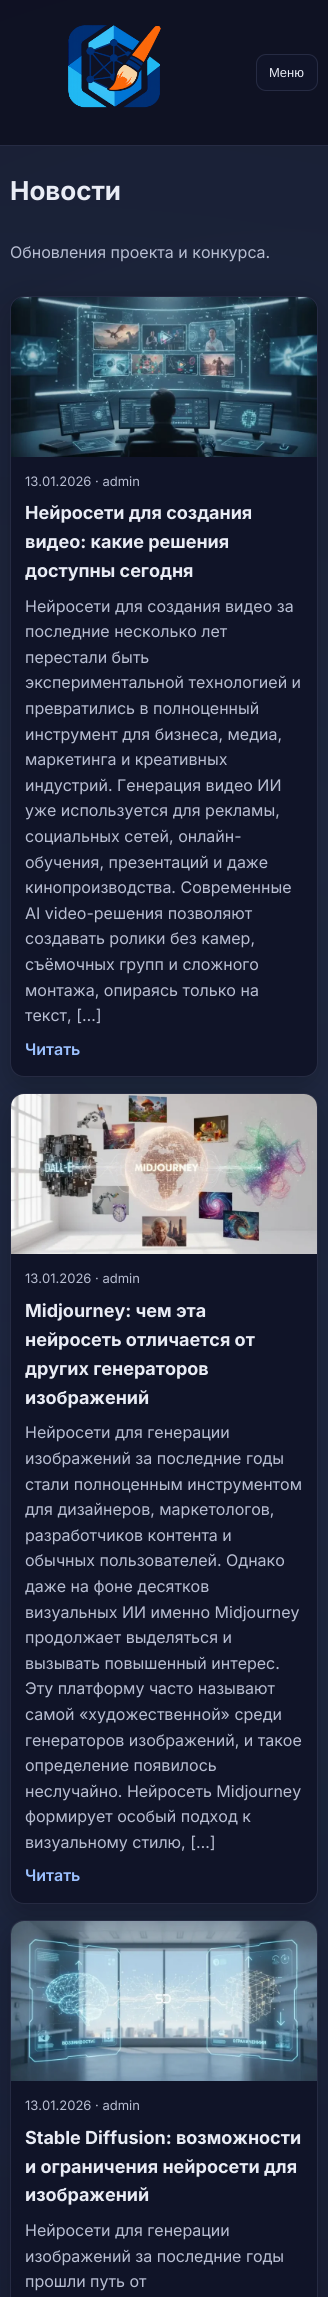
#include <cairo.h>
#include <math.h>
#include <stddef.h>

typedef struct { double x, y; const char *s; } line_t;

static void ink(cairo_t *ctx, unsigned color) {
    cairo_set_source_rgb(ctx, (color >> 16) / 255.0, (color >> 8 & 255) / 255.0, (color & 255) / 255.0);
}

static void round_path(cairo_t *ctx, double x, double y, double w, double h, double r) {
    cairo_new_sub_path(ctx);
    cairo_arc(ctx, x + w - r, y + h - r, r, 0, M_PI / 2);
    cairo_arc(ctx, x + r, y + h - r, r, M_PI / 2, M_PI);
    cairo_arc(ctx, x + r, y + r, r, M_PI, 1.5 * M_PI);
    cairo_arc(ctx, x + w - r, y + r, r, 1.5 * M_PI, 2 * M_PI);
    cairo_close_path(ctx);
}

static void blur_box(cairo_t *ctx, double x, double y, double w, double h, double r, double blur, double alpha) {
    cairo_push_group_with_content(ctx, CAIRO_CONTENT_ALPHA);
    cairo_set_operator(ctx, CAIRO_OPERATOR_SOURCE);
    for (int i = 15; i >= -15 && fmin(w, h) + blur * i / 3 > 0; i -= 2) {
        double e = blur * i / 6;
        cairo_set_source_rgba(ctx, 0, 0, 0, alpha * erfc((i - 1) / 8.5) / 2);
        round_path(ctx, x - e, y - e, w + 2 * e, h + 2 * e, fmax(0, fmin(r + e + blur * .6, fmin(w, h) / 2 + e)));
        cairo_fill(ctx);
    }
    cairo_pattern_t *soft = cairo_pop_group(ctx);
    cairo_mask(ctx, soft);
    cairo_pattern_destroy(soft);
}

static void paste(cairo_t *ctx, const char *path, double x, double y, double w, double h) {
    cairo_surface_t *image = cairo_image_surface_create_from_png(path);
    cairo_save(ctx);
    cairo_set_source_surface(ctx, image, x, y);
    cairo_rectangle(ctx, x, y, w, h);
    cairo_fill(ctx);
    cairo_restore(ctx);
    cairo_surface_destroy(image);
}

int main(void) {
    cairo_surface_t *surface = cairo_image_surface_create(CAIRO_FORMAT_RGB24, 328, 2297);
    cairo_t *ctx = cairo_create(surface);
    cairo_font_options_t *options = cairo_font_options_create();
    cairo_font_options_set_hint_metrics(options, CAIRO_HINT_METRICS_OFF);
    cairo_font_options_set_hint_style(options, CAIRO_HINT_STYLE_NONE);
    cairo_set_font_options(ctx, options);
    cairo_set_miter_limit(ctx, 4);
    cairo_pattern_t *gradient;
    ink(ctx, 0xFFFFFF);
    cairo_paint(ctx);
    gradient = cairo_pattern_create_radial(295, 835, 0, 295, 835, 7521);
    cairo_pattern_add_color_stop_rgba(gradient, 0, 0.106, 0.133, 0.212, 1);
    cairo_pattern_add_color_stop_rgba(gradient, 0.32, 0.051, 0.063, 0.125, 1);
    cairo_set_source(ctx, gradient);
    cairo_pattern_destroy(gradient);
    cairo_rectangle(ctx, 0, 0, 328, 2297);
    cairo_fill(ctx);
    gradient = cairo_pattern_create_radial(33, 1670, 0, 33, 1670, 6687);
    cairo_pattern_add_color_stop_rgba(gradient, 0, 0.424, 0.576, 0.965, 0.1);
    cairo_pattern_add_color_stop_rgba(gradient, 0.35, 0.424, 0.576, 0.965, 0);
    cairo_set_source(ctx, gradient);
    cairo_pattern_destroy(gradient);
    cairo_rectangle(ctx, 0, 0, 328, 2297);
    cairo_fill(ctx);
    cairo_set_source_rgba(ctx, 0.051, 0.063, 0.125, 0.85);
    cairo_rectangle(ctx, 0, 0, 328, 145);
    cairo_fill(ctx);
    ink(ctx, 0x262B43);
    cairo_rectangle(ctx, 0, 145, 328, 1);
    cairo_fill(ctx);
    paste(ctx, "media/1.png", 68, 25, 93, 83);
    ink(ctx, 0x101428);
    round_path(ctx, 256.5, 54.5, 61, 36, 9.5);
    cairo_fill_preserve(ctx);
    ink(ctx, 0x262B43);
    cairo_set_line_width(ctx, 1);
    cairo_stroke(ctx);
    cairo_select_font_face(ctx, "Liberation Sans", CAIRO_FONT_SLANT_NORMAL, CAIRO_FONT_WEIGHT_NORMAL);
    cairo_set_font_size(ctx, 13);
    ink(ctx, 0xE9ECF5);
    cairo_move_to(ctx, 269, 77);
    cairo_show_text(ctx, "Меню");
    cairo_select_font_face(ctx, "Inter", CAIRO_FONT_SLANT_NORMAL, CAIRO_FONT_WEIGHT_BOLD);
    cairo_set_font_size(ctx, 26);
    cairo_move_to(ctx, 10, 200);
    cairo_show_text(ctx, "Новости");
    cairo_select_font_face(ctx, "Inter", CAIRO_FONT_SLANT_NORMAL, CAIRO_FONT_WEIGHT_NORMAL);
    cairo_set_font_size(ctx, 16);
    ink(ctx, 0xB8BED2);
    cairo_move_to(ctx, 10, 258);
    cairo_show_text(ctx, "Обновления проекта и конкурса.");
    ink(ctx, 0x000000);
    blur_box(ctx, 10, 306, 308, 781, 14, 17.5, 0.25);
    ink(ctx, 0x101428);
    round_path(ctx, 10.5, 296.5, 307, 780, 13.5);
    cairo_fill_preserve(ctx);
    ink(ctx, 0x262B43);
    cairo_stroke(ctx);
    paste(ctx, "media/2.png", 11, 297, 306, 160);
    cairo_set_font_size(ctx, 13);
    ink(ctx, 0xB8BED2);
    cairo_move_to(ctx, 25, 486);
    cairo_show_text(ctx, "13.01.2026 · admin");
    cairo_select_font_face(ctx, "Inter", CAIRO_FONT_SLANT_NORMAL, CAIRO_FONT_WEIGHT_BOLD);
    cairo_set_font_size(ctx, 18);
    ink(ctx, 0xE9ECF5);
    {
        static const line_t items[] = {
            {25, 519, "Нейросети для создания"},
            {25, 548, "видео: какие решения"},
            {25, 577, "доступны сегодня"},
        };
        for (size_t i = 0; i < sizeof items / sizeof *items; i++) {
            cairo_move_to(ctx, items[i].x, items[i].y);
            cairo_show_text(ctx, items[i].s);
        }
    }
    cairo_select_font_face(ctx, "Inter", CAIRO_FONT_SLANT_NORMAL, CAIRO_FONT_WEIGHT_NORMAL);
    cairo_set_font_size(ctx, 16);
    ink(ctx, 0xB8BED2);
    {
        static const line_t items[] = {
            {25, 612, "Нейросети для создания видео за"},
            {25, 637, "последние несколько лет"},
            {25, 663, "перестали быть"},
            {25, 688, "экспериментальной технологией и"},
            {25, 714, "превратились в полноценный"},
            {25, 740, "инструмент для бизнеса, медиа,"},
            {25, 765, "маркетинга и креативных"},
            {25, 791, "индустрий. Генерация видео ИИ"},
            {25, 816, "уже используется для рекламы,"},
            {25, 842, "социальных сетей, онлайн-"},
            {25, 868, "обучения, презентаций и даже"},
            {25, 893, "кинопроизводства. Современные"},
            {25, 919, "AI video-решения позволяют"},
            {25, 944, "создавать ролики без камер,"},
            {25, 970, "съёмочных групп и сложного"},
            {25, 996, "монтажа, опираясь только на"},
            {25, 1021, "текст, […]"},
        };
        for (size_t i = 0; i < sizeof items / sizeof *items; i++) {
            cairo_move_to(ctx, items[i].x, items[i].y);
            cairo_show_text(ctx, items[i].s);
        }
    }
    cairo_select_font_face(ctx, "Inter SemiBold", CAIRO_FONT_SLANT_NORMAL, CAIRO_FONT_WEIGHT_NORMAL);
    ink(ctx, 0x9CC1FF);
    cairo_move_to(ctx, 25, 1055);
    cairo_show_text(ctx, "Читать");
    ink(ctx, 0x000000);
    blur_box(ctx, 10, 1103, 308, 811, 14, 17.5, 0.25);
    ink(ctx, 0x101428);
    round_path(ctx, 10.5, 1093.5, 307, 810, 13.5);
    cairo_fill_preserve(ctx);
    ink(ctx, 0x262B43);
    cairo_stroke(ctx);
    paste(ctx, "media/3.png", 11, 1094, 306, 160);
    cairo_select_font_face(ctx, "Inter", CAIRO_FONT_SLANT_NORMAL, CAIRO_FONT_WEIGHT_NORMAL);
    cairo_set_font_size(ctx, 13);
    ink(ctx, 0xB8BED2);
    cairo_move_to(ctx, 25, 1283);
    cairo_show_text(ctx, "13.01.2026 · admin");
    cairo_select_font_face(ctx, "Inter", CAIRO_FONT_SLANT_NORMAL, CAIRO_FONT_WEIGHT_BOLD);
    cairo_set_font_size(ctx, 18);
    ink(ctx, 0xE9ECF5);
    {
        static const line_t items[] = {
            {25, 1317, "Midjourney: чем эта"},
            {25, 1346, "нейросеть отличается от"},
            {25, 1375, "других генераторов"},
            {25, 1404, "изображений"},
        };
        for (size_t i = 0; i < sizeof items / sizeof *items; i++) {
            cairo_move_to(ctx, items[i].x, items[i].y);
            cairo_show_text(ctx, items[i].s);
        }
    }
    cairo_select_font_face(ctx, "Inter", CAIRO_FONT_SLANT_NORMAL, CAIRO_FONT_WEIGHT_NORMAL);
    cairo_set_font_size(ctx, 16);
    ink(ctx, 0xB8BED2);
    {
        static const line_t items[] = {
            {25, 1438, "Нейросети для генерации"},
            {25, 1464, "изображений за последние годы"},
            {25, 1490, "стали полноценным инструментом"},
            {25, 1515, "для дизайнеров, маркетологов,"},
            {25, 1541, "разработчиков контента и"},
            {25, 1566, "обычных пользователей. Однако"},
            {25, 1592, "даже на фоне десятков"},
            {25, 1618, "визуальных ИИ именно Midjourney"},
            {25, 1643, "продолжает выделяться и"},
            {25, 1669, "вызывать повышенный интерес."},
            {25, 1694, "Эту платформу часто называют"},
            {25, 1720, "самой «художественной» среди"},
            {25, 1746, "генераторов изображений, и такое"},
            {25, 1771, "определение появилось"},
            {25, 1797, "неслучайно. Нейросеть Midjourney"},
            {25, 1822, "формирует особый подход к"},
            {25, 1848, "визуальному стилю, […]"},
        };
        for (size_t i = 0; i < sizeof items / sizeof *items; i++) {
            cairo_move_to(ctx, items[i].x, items[i].y);
            cairo_show_text(ctx, items[i].s);
        }
    }
    cairo_select_font_face(ctx, "Inter SemiBold", CAIRO_FONT_SLANT_NORMAL, CAIRO_FONT_WEIGHT_NORMAL);
    ink(ctx, 0x9CC1FF);
    cairo_move_to(ctx, 25, 1881);
    cairo_show_text(ctx, "Читать");
    ink(ctx, 0x000000);
    blur_box(ctx, 10, 1930, 308, 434, 14, 17.5, 0.25);
    ink(ctx, 0x101428);
    round_path(ctx, 10.5, 1920.5, 307, 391, 13.5);
    cairo_fill_preserve(ctx);
    ink(ctx, 0x262B43);
    cairo_stroke(ctx);
    paste(ctx, "media/4.png", 11, 1921, 306, 160);
    cairo_select_font_face(ctx, "Inter", CAIRO_FONT_SLANT_NORMAL, CAIRO_FONT_WEIGHT_NORMAL);
    cairo_set_font_size(ctx, 13);
    ink(ctx, 0xB8BED2);
    cairo_move_to(ctx, 25, 2110);
    cairo_show_text(ctx, "13.01.2026 · admin");
    cairo_select_font_face(ctx, "Inter", CAIRO_FONT_SLANT_NORMAL, CAIRO_FONT_WEIGHT_BOLD);
    cairo_set_font_size(ctx, 18);
    ink(ctx, 0xE9ECF5);
    {
        static const line_t items[] = {
            {25, 2144, "Stable Diffusion: возможности"},
            {25, 2173, "и ограничения нейросети для"},
            {25, 2201, "изображений"},
        };
        for (size_t i = 0; i < sizeof items / sizeof *items; i++) {
            cairo_move_to(ctx, items[i].x, items[i].y);
            cairo_show_text(ctx, items[i].s);
        }
    }
    cairo_select_font_face(ctx, "Inter", CAIRO_FONT_SLANT_NORMAL, CAIRO_FONT_WEIGHT_NORMAL);
    cairo_set_font_size(ctx, 16);
    ink(ctx, 0xB8BED2);
    {
        static const line_t items[] = {
            {25, 2236, "Нейросети для генерации"},
            {25, 2262, "изображений за последние годы"},
            {25, 2287, "прошли путь от"},
        };
        for (size_t i = 0; i < sizeof items / sizeof *items; i++) {
            cairo_move_to(ctx, items[i].x, items[i].y);
            cairo_show_text(ctx, items[i].s);
        }
    }
    cairo_surface_write_to_png(surface, "image.png");
    cairo_font_options_destroy(options);
    cairo_destroy(ctx);
    cairo_surface_destroy(surface);
    return 0;
}
